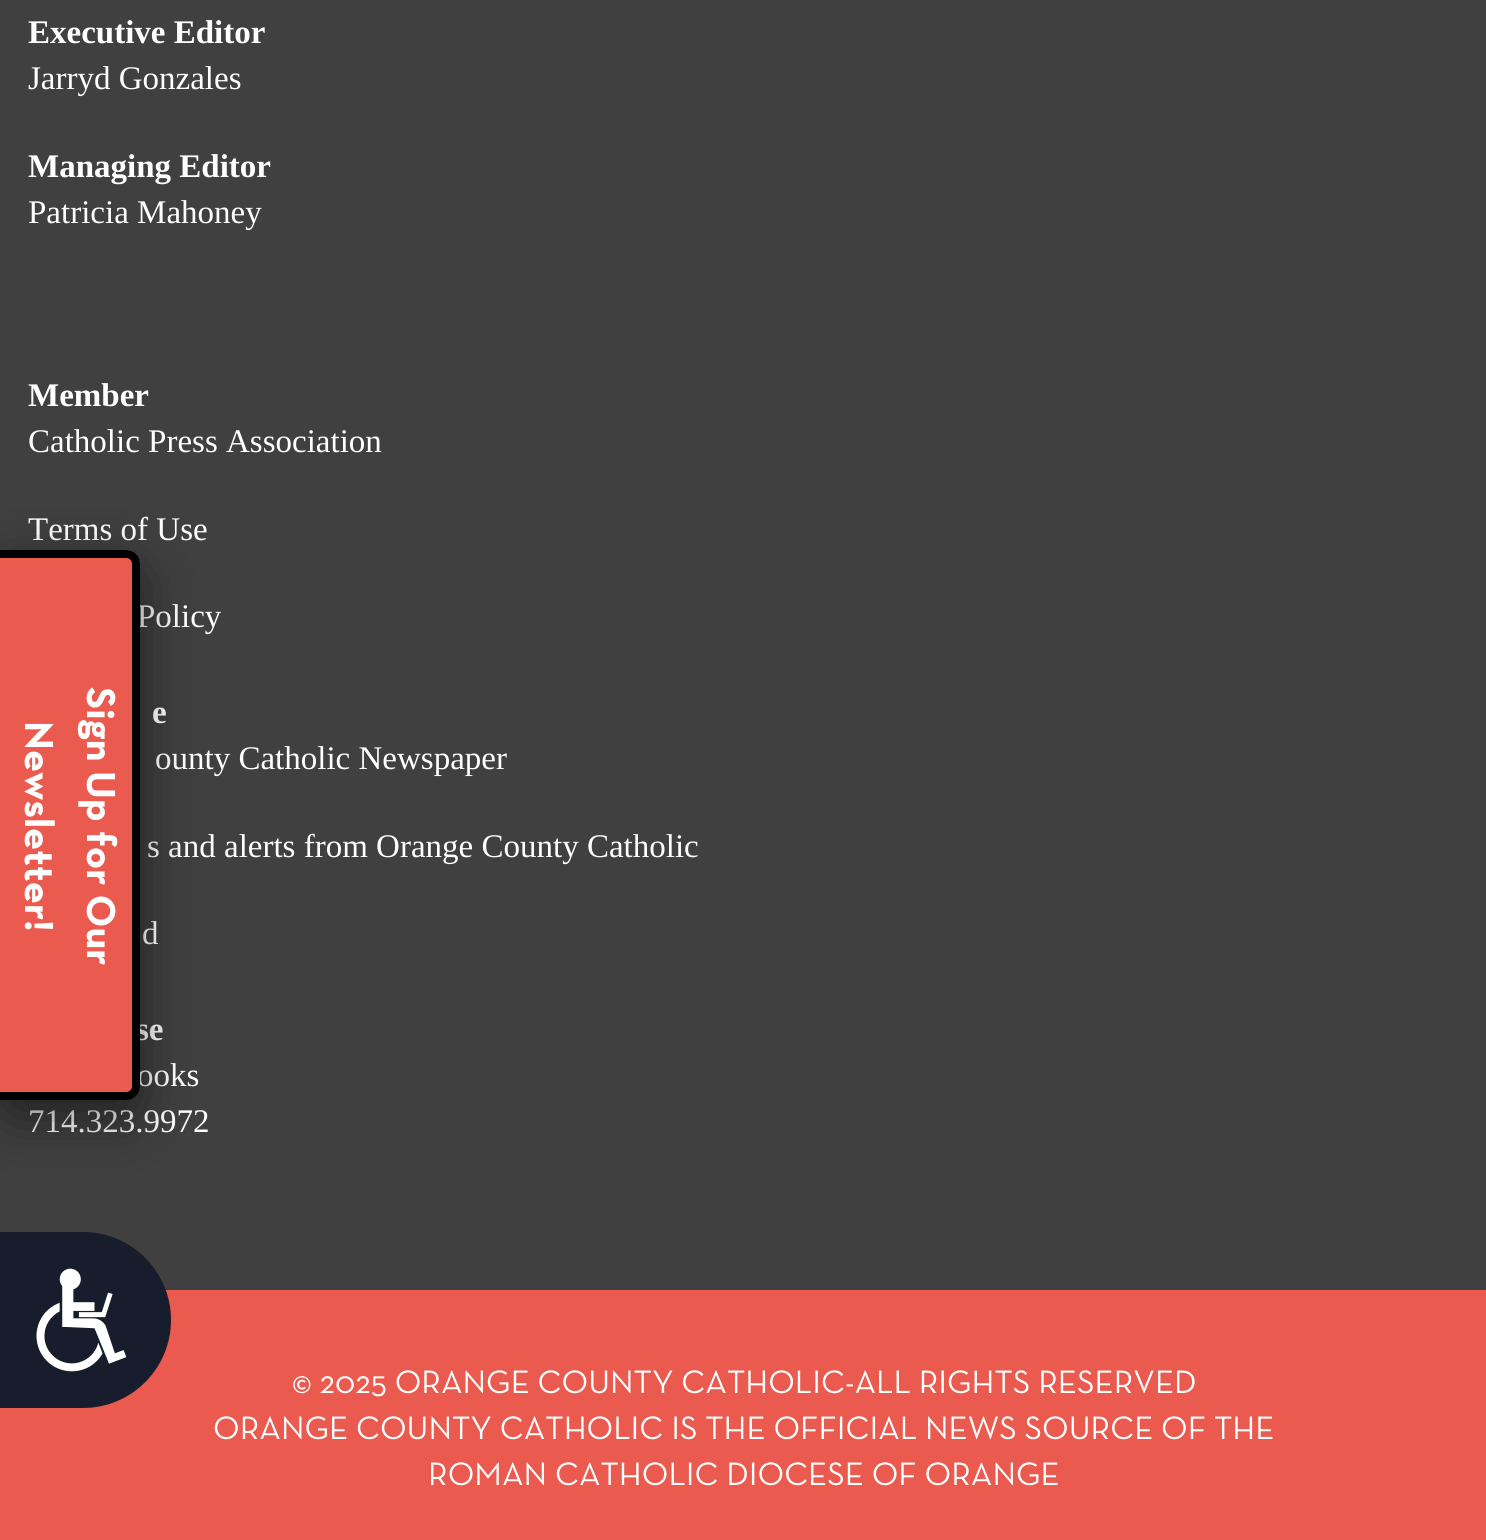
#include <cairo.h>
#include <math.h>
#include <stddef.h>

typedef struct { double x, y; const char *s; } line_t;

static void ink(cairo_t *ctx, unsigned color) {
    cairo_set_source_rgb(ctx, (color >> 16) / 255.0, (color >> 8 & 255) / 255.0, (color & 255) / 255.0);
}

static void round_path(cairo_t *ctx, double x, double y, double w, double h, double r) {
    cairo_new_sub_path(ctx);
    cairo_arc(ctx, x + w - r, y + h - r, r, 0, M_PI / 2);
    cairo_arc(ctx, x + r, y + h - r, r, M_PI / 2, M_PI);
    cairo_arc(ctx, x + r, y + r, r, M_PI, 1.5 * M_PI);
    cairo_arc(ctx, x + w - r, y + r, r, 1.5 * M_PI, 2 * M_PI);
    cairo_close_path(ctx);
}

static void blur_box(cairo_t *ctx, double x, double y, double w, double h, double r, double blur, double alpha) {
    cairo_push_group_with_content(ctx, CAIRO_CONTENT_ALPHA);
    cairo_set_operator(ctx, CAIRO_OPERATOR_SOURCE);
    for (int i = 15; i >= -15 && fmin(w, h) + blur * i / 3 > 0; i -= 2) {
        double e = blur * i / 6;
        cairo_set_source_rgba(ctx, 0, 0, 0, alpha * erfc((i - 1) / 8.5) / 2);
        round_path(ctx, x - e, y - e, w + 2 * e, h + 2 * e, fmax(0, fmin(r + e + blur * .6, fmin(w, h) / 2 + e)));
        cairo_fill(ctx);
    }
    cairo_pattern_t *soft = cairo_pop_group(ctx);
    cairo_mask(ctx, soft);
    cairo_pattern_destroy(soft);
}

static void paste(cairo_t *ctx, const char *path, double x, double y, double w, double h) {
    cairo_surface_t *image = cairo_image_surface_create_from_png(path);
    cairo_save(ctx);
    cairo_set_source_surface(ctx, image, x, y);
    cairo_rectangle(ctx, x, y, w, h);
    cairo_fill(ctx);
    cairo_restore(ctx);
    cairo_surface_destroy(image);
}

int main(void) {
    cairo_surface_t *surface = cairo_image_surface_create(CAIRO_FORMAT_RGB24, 1486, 1540);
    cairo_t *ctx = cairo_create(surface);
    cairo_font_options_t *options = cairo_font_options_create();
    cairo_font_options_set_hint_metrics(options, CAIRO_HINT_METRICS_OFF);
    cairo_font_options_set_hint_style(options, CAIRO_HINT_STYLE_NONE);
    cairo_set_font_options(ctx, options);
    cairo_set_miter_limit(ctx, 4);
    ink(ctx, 0x404040);
    cairo_paint(ctx);
    cairo_select_font_face(ctx, "Liberation Serif", CAIRO_FONT_SLANT_NORMAL, CAIRO_FONT_WEIGHT_BOLD);
    cairo_set_font_size(ctx, 33);
    ink(ctx, 0xFFFFFF);
    cairo_move_to(ctx, 28, 43);
    cairo_show_text(ctx, "Executive Editor");
    cairo_select_font_face(ctx, "Liberation Serif", CAIRO_FONT_SLANT_NORMAL, CAIRO_FONT_WEIGHT_NORMAL);
    cairo_move_to(ctx, 28, 89);
    cairo_show_text(ctx, "Jarryd Gonzales");
    cairo_select_font_face(ctx, "Liberation Serif", CAIRO_FONT_SLANT_NORMAL, CAIRO_FONT_WEIGHT_BOLD);
    cairo_move_to(ctx, 28, 177);
    cairo_show_text(ctx, "Managing Editor");
    cairo_select_font_face(ctx, "Liberation Serif", CAIRO_FONT_SLANT_NORMAL, CAIRO_FONT_WEIGHT_NORMAL);
    cairo_move_to(ctx, 28, 223);
    cairo_show_text(ctx, "Patricia Mahoney");
    cairo_select_font_face(ctx, "Liberation Serif", CAIRO_FONT_SLANT_NORMAL, CAIRO_FONT_WEIGHT_BOLD);
    cairo_move_to(ctx, 28, 406);
    cairo_show_text(ctx, "Member");
    cairo_select_font_face(ctx, "Liberation Serif", CAIRO_FONT_SLANT_NORMAL, CAIRO_FONT_WEIGHT_NORMAL);
    {
        static const line_t items[] = {
            {28, 452, "Catholic Press Association"},
            {28, 540, "Terms of Use"},
            {137, 627, "Policy"},
        };
        for (size_t i = 0; i < sizeof items / sizeof *items; i++) {
            cairo_move_to(ctx, items[i].x, items[i].y);
            cairo_show_text(ctx, items[i].s);
        }
    }
    cairo_select_font_face(ctx, "Liberation Serif", CAIRO_FONT_SLANT_NORMAL, CAIRO_FONT_WEIGHT_BOLD);
    cairo_move_to(ctx, 152, 723);
    cairo_show_text(ctx, "e");
    cairo_select_font_face(ctx, "Liberation Serif", CAIRO_FONT_SLANT_NORMAL, CAIRO_FONT_WEIGHT_NORMAL);
    {
        static const line_t items[] = {
            {155, 769, "ounty Catholic Newspaper"},
            {147, 857, "s and alerts from Orange County Catholic"},
            {142, 944, "d"},
        };
        for (size_t i = 0; i < sizeof items / sizeof *items; i++) {
            cairo_move_to(ctx, items[i].x, items[i].y);
            cairo_show_text(ctx, items[i].s);
        }
    }
    cairo_select_font_face(ctx, "Liberation Serif", CAIRO_FONT_SLANT_NORMAL, CAIRO_FONT_WEIGHT_BOLD);
    cairo_move_to(ctx, 136, 1040);
    cairo_show_text(ctx, "se");
    cairo_select_font_face(ctx, "Liberation Serif", CAIRO_FONT_SLANT_NORMAL, CAIRO_FONT_WEIGHT_NORMAL);
    cairo_move_to(ctx, 137, 1086);
    cairo_show_text(ctx, "ooks");
    cairo_move_to(ctx, 28, 1132);
    cairo_show_text(ctx, "714.323.9972");
    ink(ctx, 0xEB5A4E);
    cairo_rectangle(ctx, 0, 1290, 1486, 250);
    cairo_fill(ctx);
    cairo_select_font_face(ctx, "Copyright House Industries", CAIRO_FONT_SLANT_NORMAL, CAIRO_FONT_WEIGHT_NORMAL);
    ink(ctx, 0xFFFFFF);
    {
        static const line_t items[] = {
            {292, 1393, "© 2025 ORANGE COUNTY CATHOLIC-ALL RIGHTS RESERVED"},
            {213, 1439, "ORANGE COUNTY CATHOLIC IS THE OFFICIAL NEWS SOURCE OF THE"},
            {428, 1485, "ROMAN CATHOLIC DIOCESE OF ORANGE"},
        };
        for (size_t i = 0; i < sizeof items / sizeof *items; i++) {
            cairo_move_to(ctx, items[i].x, items[i].y);
            cairo_show_text(ctx, items[i].s);
        }
    }
    ink(ctx, 0x000000);
    blur_box(ctx, 0, 567, 140, 550, 14, 27.5, 0.5);
    ink(ctx, 0xEB5A4E);
    cairo_new_path(ctx);
    cairo_move_to(ctx, 0, 550);
    cairo_line_to(ctx, 126, 550);
    cairo_curve_to(ctx, 133.5, 550, 140, 556.5, 140, 564);
    cairo_line_to(ctx, 140, 1086);
    cairo_curve_to(ctx, 140, 1093.5, 133.5, 1100, 126, 1100);
    cairo_line_to(ctx, 0, 1100);
    cairo_close_path(ctx);
    cairo_fill(ctx);
    ink(ctx, 0x000000);
    cairo_set_fill_rule(ctx, CAIRO_FILL_RULE_EVEN_ODD);
    cairo_new_path(ctx);
    cairo_move_to(ctx, 0, 550);
    cairo_line_to(ctx, 126, 550);
    cairo_curve_to(ctx, 134, 550, 140, 556, 140, 564);
    cairo_line_to(ctx, 140, 1086);
    cairo_curve_to(ctx, 140, 1094, 134, 1100, 126, 1100);
    cairo_line_to(ctx, 0, 1100);
    cairo_close_path(ctx);
    cairo_move_to(ctx, 0, 558);
    cairo_line_to(ctx, 126, 558);
    cairo_curve_to(ctx, 130, 558, 132, 561, 132, 564);
    cairo_line_to(ctx, 132, 1086);
    cairo_curve_to(ctx, 132, 1089, 130, 1092, 126, 1092);
    cairo_line_to(ctx, 0, 1092);
    cairo_close_path(ctx);
    cairo_fill(ctx);
    cairo_select_font_face(ctx, "Copyright House Industries", CAIRO_FONT_SLANT_NORMAL, CAIRO_FONT_WEIGHT_BOLD);
    cairo_set_font_size(ctx, 41.25);
    ink(ctx, 0xFFFFFF);
    cairo_save(ctx);
    cairo_translate(ctx, 25, 721);
    cairo_rotate(ctx, 90 * M_PI / 180);
    cairo_move_to(ctx, 0, 0);
    cairo_show_text(ctx, "Newsletter!");
    cairo_restore(ctx);
    cairo_save(ctx);
    cairo_translate(ctx, 87, 687);
    cairo_rotate(ctx, 90 * M_PI / 180);
    cairo_move_to(ctx, 0, 0);
    cairo_show_text(ctx, "Sign Up for Our");
    cairo_restore(ctx);
    ink(ctx, 0x171D2D);
    cairo_new_path(ctx);
    cairo_move_to(ctx, 0, 1232);
    cairo_line_to(ctx, 83, 1232);
    cairo_curve_to(ctx, 131.5, 1232, 171, 1271.5, 171, 1320);
    cairo_curve_to(ctx, 171, 1368.5, 131.5, 1408, 83, 1408);
    cairo_line_to(ctx, 0, 1408);
    cairo_close_path(ctx);
    cairo_fill(ctx);
    paste(ctx, "media/1.png", 36, 1268, 91, 104);
    cairo_surface_write_to_png(surface, "image.png");
    cairo_font_options_destroy(options);
    cairo_destroy(ctx);
    cairo_surface_destroy(surface);
    return 0;
}
